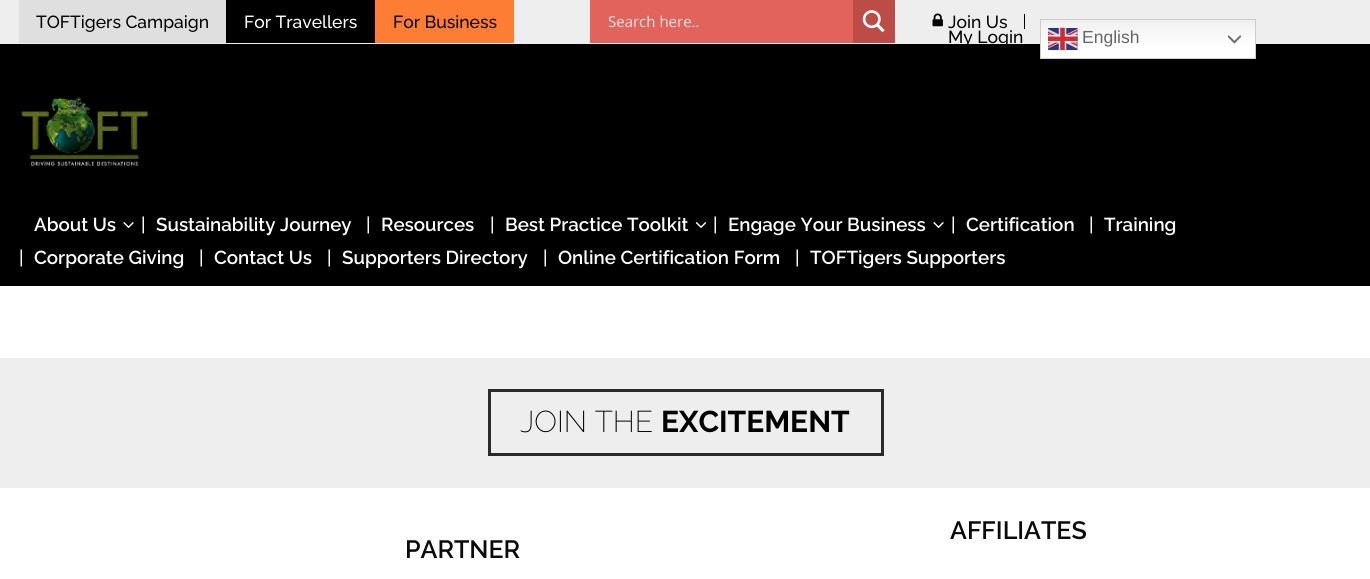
#include <cairo.h>
#include <math.h>
#include <stddef.h>


static void ink(cairo_t *ctx, unsigned color) {
    cairo_set_source_rgb(ctx, (color >> 16) / 255.0, (color >> 8 & 255) / 255.0, (color & 255) / 255.0);
}

static void paste(cairo_t *ctx, const char *path, double x, double y, double w, double h) {
    cairo_surface_t *image = cairo_image_surface_create_from_png(path);
    cairo_save(ctx);
    cairo_set_source_surface(ctx, image, x, y);
    cairo_rectangle(ctx, x, y, w, h);
    cairo_fill(ctx);
    cairo_restore(ctx);
    cairo_surface_destroy(image);
}

int main(void) {
    cairo_surface_t *surface = cairo_image_surface_create(CAIRO_FORMAT_RGB24, 1370, 579);
    cairo_t *ctx = cairo_create(surface);
    cairo_font_options_t *options = cairo_font_options_create();
    cairo_font_options_set_hint_metrics(options, CAIRO_HINT_METRICS_OFF);
    cairo_font_options_set_hint_style(options, CAIRO_HINT_STYLE_NONE);
    cairo_set_font_options(ctx, options);
    cairo_set_miter_limit(ctx, 4);
    cairo_pattern_t *gradient;
    ink(ctx, 0xEEEEEE);
    cairo_paint(ctx);
    ink(ctx, 0xDFDFDF);
    cairo_rectangle(ctx, 19, 0, 207, 43);
    cairo_fill(ctx);
    cairo_select_font_face(ctx, "Raleway Medium", CAIRO_FONT_SLANT_NORMAL, CAIRO_FONT_WEIGHT_NORMAL);
    cairo_set_font_size(ctx, 17.5);
    ink(ctx, 0x000000);
    cairo_move_to(ctx, 36, 28);
    cairo_show_text(ctx, "TOFTigers Campaign");
    cairo_rectangle(ctx, 226, 0, 149, 43);
    cairo_fill(ctx);
    ink(ctx, 0xFFFFFF);
    cairo_move_to(ctx, 244, 28);
    cairo_show_text(ctx, "For Travellers");
    ink(ctx, 0xFE7D35);
    cairo_rectangle(ctx, 375, 0, 139, 43);
    cairo_fill(ctx);
    ink(ctx, 0x000000);
    cairo_move_to(ctx, 393, 28);
    cairo_show_text(ctx, "For Business");
    ink(ctx, 0xE1635C);
    cairo_rectangle(ctx, 590, 0, 263, 43);
    cairo_fill(ctx);
    cairo_select_font_face(ctx, "Open Sans", CAIRO_FONT_SLANT_NORMAL, CAIRO_FONT_WEIGHT_NORMAL);
    cairo_set_font_size(ctx, 15);
    ink(ctx, 0xFBE8E7);
    cairo_move_to(ctx, 608, 27);
    cairo_show_text(ctx, "Search here..");
    ink(ctx, 0xBE4C46);
    cairo_rectangle(ctx, 853, 0, 42, 43);
    cairo_fill(ctx);
    paste(ctx, "media/1.png", 862, 10, 23, 23);
    ink(ctx, 0x000000);
    cairo_rectangle(ctx, 1024, 14, 1, 15);
    cairo_fill(ctx);
    paste(ctx, "media/2.png", 932, 13, 11, 14);
    cairo_select_font_face(ctx, "Raleway Medium", CAIRO_FONT_SLANT_NORMAL, CAIRO_FONT_WEIGHT_NORMAL);
    cairo_set_font_size(ctx, 17.5);
    cairo_move_to(ctx, 948, 28);
    cairo_show_text(ctx, "Join Us");
    cairo_rectangle(ctx, 0, 44, 1370, 242);
    cairo_fill(ctx);
    cairo_move_to(ctx, 948, 43);
    cairo_show_text(ctx, "My Login");
    gradient = cairo_pattern_create_linear(1148, 19, 1148, 59);
    cairo_pattern_add_color_stop_rgba(gradient, 0, 0.937, 0.937, 0.937, 1);
    cairo_pattern_add_color_stop_rgba(gradient, 0.7, 1, 1, 1, 1);
    cairo_set_source(ctx, gradient);
    cairo_pattern_destroy(gradient);
    cairo_rectangle(ctx, 1041, 22, 214, 36);
    cairo_fill(ctx);
    cairo_rectangle(ctx, 1040.5, 19.5, 215, 39);
    ink(ctx, 0xCCCCCC);
    cairo_set_line_width(ctx, 1);
    cairo_stroke(ctx);
    paste(ctx, "media/3.png", 1048, 27, 30, 23);
    cairo_select_font_face(ctx, "Liberation Sans", CAIRO_FONT_SLANT_NORMAL, CAIRO_FONT_WEIGHT_NORMAL);
    ink(ctx, 0x666666);
    cairo_move_to(ctx, 1082, 43);
    cairo_show_text(ctx, "English");
    paste(ctx, "media/4.png", 1228, 35, 13, 9);
    paste(ctx, "media/5.png", 21, 97, 127, 70);
    cairo_select_font_face(ctx, "Raleway SemiBold", CAIRO_FONT_SLANT_NORMAL, CAIRO_FONT_WEIGHT_NORMAL);
    cairo_set_font_size(ctx, 18.75);
    ink(ctx, 0xFFFFFF);
    cairo_move_to(ctx, 34, 231);
    cairo_show_text(ctx, "About Us");
    paste(ctx, "media/6.png", 123, 222, 11, 6);
    cairo_select_font_face(ctx, "Raleway Medium", CAIRO_FONT_SLANT_NORMAL, CAIRO_FONT_WEIGHT_NORMAL);
    cairo_move_to(ctx, 141, 231);
    cairo_show_text(ctx, "|");
    cairo_select_font_face(ctx, "Raleway SemiBold", CAIRO_FONT_SLANT_NORMAL, CAIRO_FONT_WEIGHT_NORMAL);
    cairo_move_to(ctx, 156, 231);
    cairo_show_text(ctx, "Sustainability Journey");
    cairo_select_font_face(ctx, "Raleway Medium", CAIRO_FONT_SLANT_NORMAL, CAIRO_FONT_WEIGHT_NORMAL);
    cairo_move_to(ctx, 366, 231);
    cairo_show_text(ctx, "|");
    cairo_select_font_face(ctx, "Raleway SemiBold", CAIRO_FONT_SLANT_NORMAL, CAIRO_FONT_WEIGHT_NORMAL);
    cairo_move_to(ctx, 381, 231);
    cairo_show_text(ctx, "Resources");
    cairo_select_font_face(ctx, "Raleway Medium", CAIRO_FONT_SLANT_NORMAL, CAIRO_FONT_WEIGHT_NORMAL);
    cairo_move_to(ctx, 490, 231);
    cairo_show_text(ctx, "|");
    cairo_select_font_face(ctx, "Raleway SemiBold", CAIRO_FONT_SLANT_NORMAL, CAIRO_FONT_WEIGHT_NORMAL);
    cairo_move_to(ctx, 505, 231);
    cairo_show_text(ctx, "Best Practice Toolkit");
    paste(ctx, "media/7.png", 695, 222, 12, 6);
    cairo_select_font_face(ctx, "Raleway Medium", CAIRO_FONT_SLANT_NORMAL, CAIRO_FONT_WEIGHT_NORMAL);
    cairo_move_to(ctx, 713, 231);
    cairo_show_text(ctx, "|");
    cairo_select_font_face(ctx, "Raleway SemiBold", CAIRO_FONT_SLANT_NORMAL, CAIRO_FONT_WEIGHT_NORMAL);
    cairo_move_to(ctx, 728, 231);
    cairo_show_text(ctx, "Engage Your Business");
    paste(ctx, "media/6.png", 933, 222, 11, 6);
    cairo_select_font_face(ctx, "Raleway Medium", CAIRO_FONT_SLANT_NORMAL, CAIRO_FONT_WEIGHT_NORMAL);
    cairo_move_to(ctx, 951, 231);
    cairo_show_text(ctx, "|");
    cairo_select_font_face(ctx, "Raleway SemiBold", CAIRO_FONT_SLANT_NORMAL, CAIRO_FONT_WEIGHT_NORMAL);
    cairo_move_to(ctx, 966, 231);
    cairo_show_text(ctx, "Certification");
    cairo_select_font_face(ctx, "Raleway Medium", CAIRO_FONT_SLANT_NORMAL, CAIRO_FONT_WEIGHT_NORMAL);
    cairo_move_to(ctx, 1089, 231);
    cairo_show_text(ctx, "|");
    cairo_select_font_face(ctx, "Raleway SemiBold", CAIRO_FONT_SLANT_NORMAL, CAIRO_FONT_WEIGHT_NORMAL);
    cairo_move_to(ctx, 1104, 231);
    cairo_show_text(ctx, "Training");
    cairo_select_font_face(ctx, "Raleway Medium", CAIRO_FONT_SLANT_NORMAL, CAIRO_FONT_WEIGHT_NORMAL);
    cairo_move_to(ctx, 19, 264);
    cairo_show_text(ctx, "|");
    cairo_select_font_face(ctx, "Raleway SemiBold", CAIRO_FONT_SLANT_NORMAL, CAIRO_FONT_WEIGHT_NORMAL);
    cairo_move_to(ctx, 34, 264);
    cairo_show_text(ctx, "Corporate Giving");
    cairo_select_font_face(ctx, "Raleway Medium", CAIRO_FONT_SLANT_NORMAL, CAIRO_FONT_WEIGHT_NORMAL);
    cairo_move_to(ctx, 199, 264);
    cairo_show_text(ctx, "|");
    cairo_select_font_face(ctx, "Raleway SemiBold", CAIRO_FONT_SLANT_NORMAL, CAIRO_FONT_WEIGHT_NORMAL);
    cairo_move_to(ctx, 214, 264);
    cairo_show_text(ctx, "Contact Us");
    cairo_select_font_face(ctx, "Raleway Medium", CAIRO_FONT_SLANT_NORMAL, CAIRO_FONT_WEIGHT_NORMAL);
    cairo_move_to(ctx, 327, 264);
    cairo_show_text(ctx, "|");
    cairo_select_font_face(ctx, "Raleway SemiBold", CAIRO_FONT_SLANT_NORMAL, CAIRO_FONT_WEIGHT_NORMAL);
    cairo_move_to(ctx, 342, 264);
    cairo_show_text(ctx, "Supporters Directory");
    cairo_select_font_face(ctx, "Raleway Medium", CAIRO_FONT_SLANT_NORMAL, CAIRO_FONT_WEIGHT_NORMAL);
    cairo_move_to(ctx, 543, 264);
    cairo_show_text(ctx, "|");
    cairo_select_font_face(ctx, "Raleway SemiBold", CAIRO_FONT_SLANT_NORMAL, CAIRO_FONT_WEIGHT_NORMAL);
    cairo_move_to(ctx, 558, 264);
    cairo_show_text(ctx, "Online Certification Form");
    cairo_select_font_face(ctx, "Raleway Medium", CAIRO_FONT_SLANT_NORMAL, CAIRO_FONT_WEIGHT_NORMAL);
    cairo_move_to(ctx, 795, 264);
    cairo_show_text(ctx, "|");
    cairo_select_font_face(ctx, "Raleway SemiBold", CAIRO_FONT_SLANT_NORMAL, CAIRO_FONT_WEIGHT_NORMAL);
    cairo_move_to(ctx, 810, 264);
    cairo_show_text(ctx, "TOFTigers Supporters");
    cairo_rectangle(ctx, 0, 286, 1370, 72);
    cairo_fill(ctx);
    cairo_rectangle(ctx, 489.5, 390.5, 393, 64);
    ink(ctx, 0x2A2A2A);
    cairo_set_line_width(ctx, 3);
    cairo_stroke(ctx);
    cairo_select_font_face(ctx, "Raleway ExtraLight", CAIRO_FONT_SLANT_NORMAL, CAIRO_FONT_WEIGHT_NORMAL);
    cairo_set_font_size(ctx, 30);
    ink(ctx, 0x000000);
    cairo_move_to(ctx, 520, 432);
    cairo_show_text(ctx, "JOIN THE");
    cairo_select_font_face(ctx, "Raleway", CAIRO_FONT_SLANT_NORMAL, CAIRO_FONT_WEIGHT_BOLD);
    cairo_move_to(ctx, 661, 432);
    cairo_show_text(ctx, "EXCITEMENT");
    ink(ctx, 0xFFFFFF);
    cairo_rectangle(ctx, 0, 488, 1370, 91);
    cairo_fill(ctx);
    cairo_select_font_face(ctx, "Raleway SemiBold", CAIRO_FONT_SLANT_NORMAL, CAIRO_FONT_WEIGHT_NORMAL);
    cairo_set_font_size(ctx, 25);
    ink(ctx, 0x0A0A0A);
    cairo_move_to(ctx, 950, 539);
    cairo_show_text(ctx, "AFFILIATES");
    cairo_move_to(ctx, 405, 558);
    cairo_show_text(ctx, "PARTNER");
    cairo_surface_write_to_png(surface, "image.png");
    cairo_font_options_destroy(options);
    cairo_destroy(ctx);
    cairo_surface_destroy(surface);
    return 0;
}
